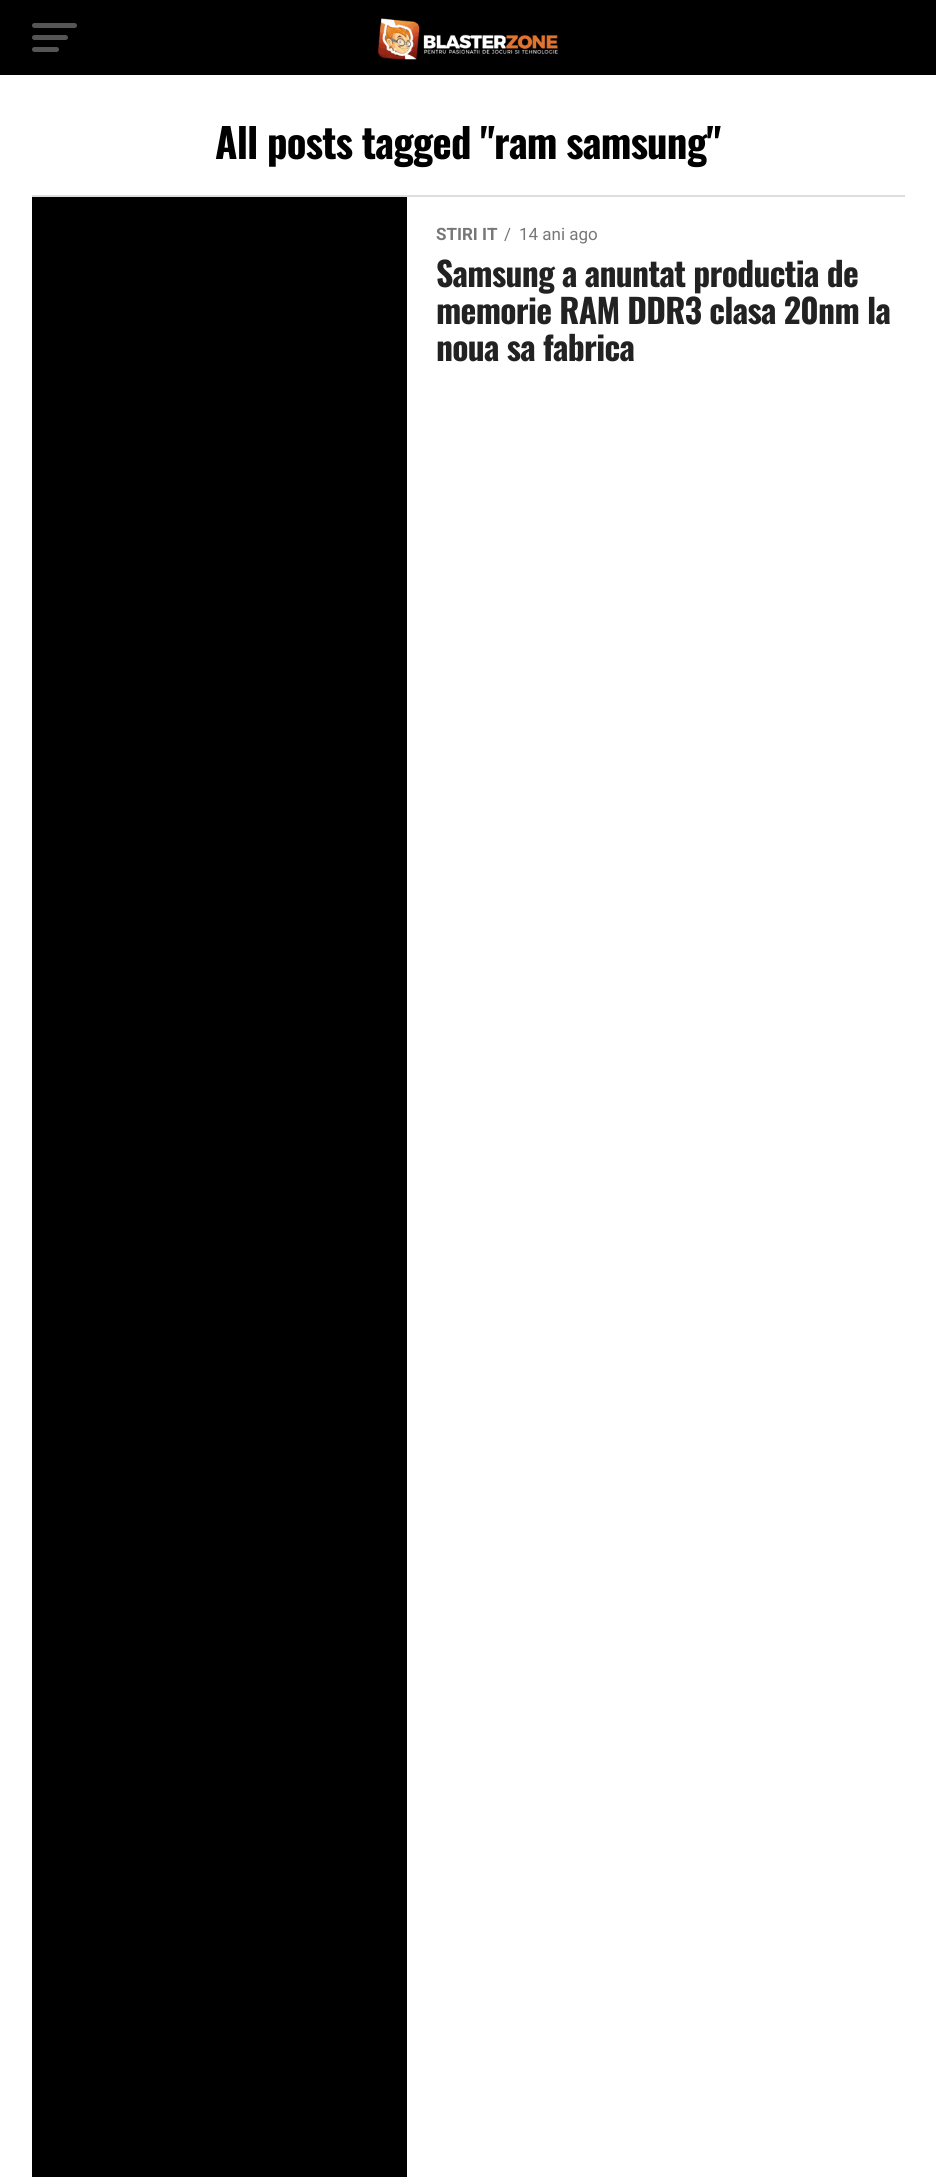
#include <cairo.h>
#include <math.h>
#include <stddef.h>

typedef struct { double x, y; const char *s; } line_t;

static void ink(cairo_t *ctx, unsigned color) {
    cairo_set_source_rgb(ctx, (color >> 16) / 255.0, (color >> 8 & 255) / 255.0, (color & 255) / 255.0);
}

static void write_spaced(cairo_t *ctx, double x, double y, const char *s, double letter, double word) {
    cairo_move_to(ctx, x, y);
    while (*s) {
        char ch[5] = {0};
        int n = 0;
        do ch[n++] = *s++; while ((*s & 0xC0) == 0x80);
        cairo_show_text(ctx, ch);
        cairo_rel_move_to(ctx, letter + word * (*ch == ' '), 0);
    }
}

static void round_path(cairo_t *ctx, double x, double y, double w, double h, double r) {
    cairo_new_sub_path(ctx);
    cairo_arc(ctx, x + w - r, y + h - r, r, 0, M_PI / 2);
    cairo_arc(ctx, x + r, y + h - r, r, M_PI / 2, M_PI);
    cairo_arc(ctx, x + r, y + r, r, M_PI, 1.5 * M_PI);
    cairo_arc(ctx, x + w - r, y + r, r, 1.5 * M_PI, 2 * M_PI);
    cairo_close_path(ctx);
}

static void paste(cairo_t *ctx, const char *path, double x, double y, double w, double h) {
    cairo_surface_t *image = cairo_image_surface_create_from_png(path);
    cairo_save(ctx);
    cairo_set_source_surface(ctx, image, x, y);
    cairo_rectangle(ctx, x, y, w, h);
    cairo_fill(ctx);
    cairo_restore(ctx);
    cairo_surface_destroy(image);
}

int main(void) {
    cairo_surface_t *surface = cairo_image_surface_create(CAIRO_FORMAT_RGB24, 936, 2177);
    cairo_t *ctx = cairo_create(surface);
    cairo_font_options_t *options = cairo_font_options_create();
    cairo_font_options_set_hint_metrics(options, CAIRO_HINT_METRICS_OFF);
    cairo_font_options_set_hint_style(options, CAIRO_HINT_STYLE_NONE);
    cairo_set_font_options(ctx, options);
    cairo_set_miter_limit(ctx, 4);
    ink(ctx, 0xFFFFFF);
    cairo_paint(ctx);
    ink(ctx, 0x000000);
    cairo_rectangle(ctx, 0, 0, 936, 75);
    cairo_fill(ctx);
    ink(ctx, 0x555555);
    round_path(ctx, 32, 23, 45, 5, 2.5);
    cairo_fill(ctx);
    round_path(ctx, 32, 35, 36, 5, 2.5);
    cairo_fill(ctx);
    round_path(ctx, 32, 47, 27, 5, 2.5);
    cairo_fill(ctx);
    paste(ctx, "media/1.png", 378, 18, 180, 42);
    cairo_select_font_face(ctx, "Oswald", CAIRO_FONT_SLANT_NORMAL, CAIRO_FONT_WEIGHT_BOLD);
    cairo_set_font_size(ctx, 40.75);
    ink(ctx, 0x000000);
    write_spaced(ctx, 215, 159, "All posts tagged \"ram samsung\"", -0.8, 0);
    ink(ctx, 0xDDDDDD);
    cairo_rectangle(ctx, 32, 195, 873, 2);
    cairo_fill(ctx);
    ink(ctx, 0x000000);
    cairo_rectangle(ctx, 32, 197, 375, 1980);
    cairo_fill(ctx);
    cairo_select_font_face(ctx, "Roboto", CAIRO_FONT_SLANT_NORMAL, CAIRO_FONT_WEIGHT_BOLD);
    cairo_set_font_size(ctx, 17);
    ink(ctx, 0x777777);
    cairo_move_to(ctx, 436, 240);
    cairo_show_text(ctx, "STIRI IT");
    cairo_select_font_face(ctx, "Roboto", CAIRO_FONT_SLANT_NORMAL, CAIRO_FONT_WEIGHT_NORMAL);
    cairo_move_to(ctx, 504, 240);
    cairo_show_text(ctx, "/");
    cairo_move_to(ctx, 519, 240);
    cairo_show_text(ctx, "14 ani ago");
    cairo_select_font_face(ctx, "Oswald", CAIRO_FONT_SLANT_NORMAL, CAIRO_FONT_WEIGHT_BOLD);
    cairo_set_font_size(ctx, 33.6);
    ink(ctx, 0x222222);
    {
        static const line_t items[] = {
            {436, 287, "Samsung a anuntat productia de"},
            {436, 324, "memorie RAM DDR3 clasa 20nm la"},
            {436, 361, "noua sa fabrica"},
        };
        for (size_t i = 0; i < sizeof items / sizeof *items; i++) {
            write_spaced(ctx, items[i].x, items[i].y, items[i].s, -0.7, 0);
        }
    }
    cairo_surface_write_to_png(surface, "image.png");
    cairo_font_options_destroy(options);
    cairo_destroy(ctx);
    cairo_surface_destroy(surface);
    return 0;
}
